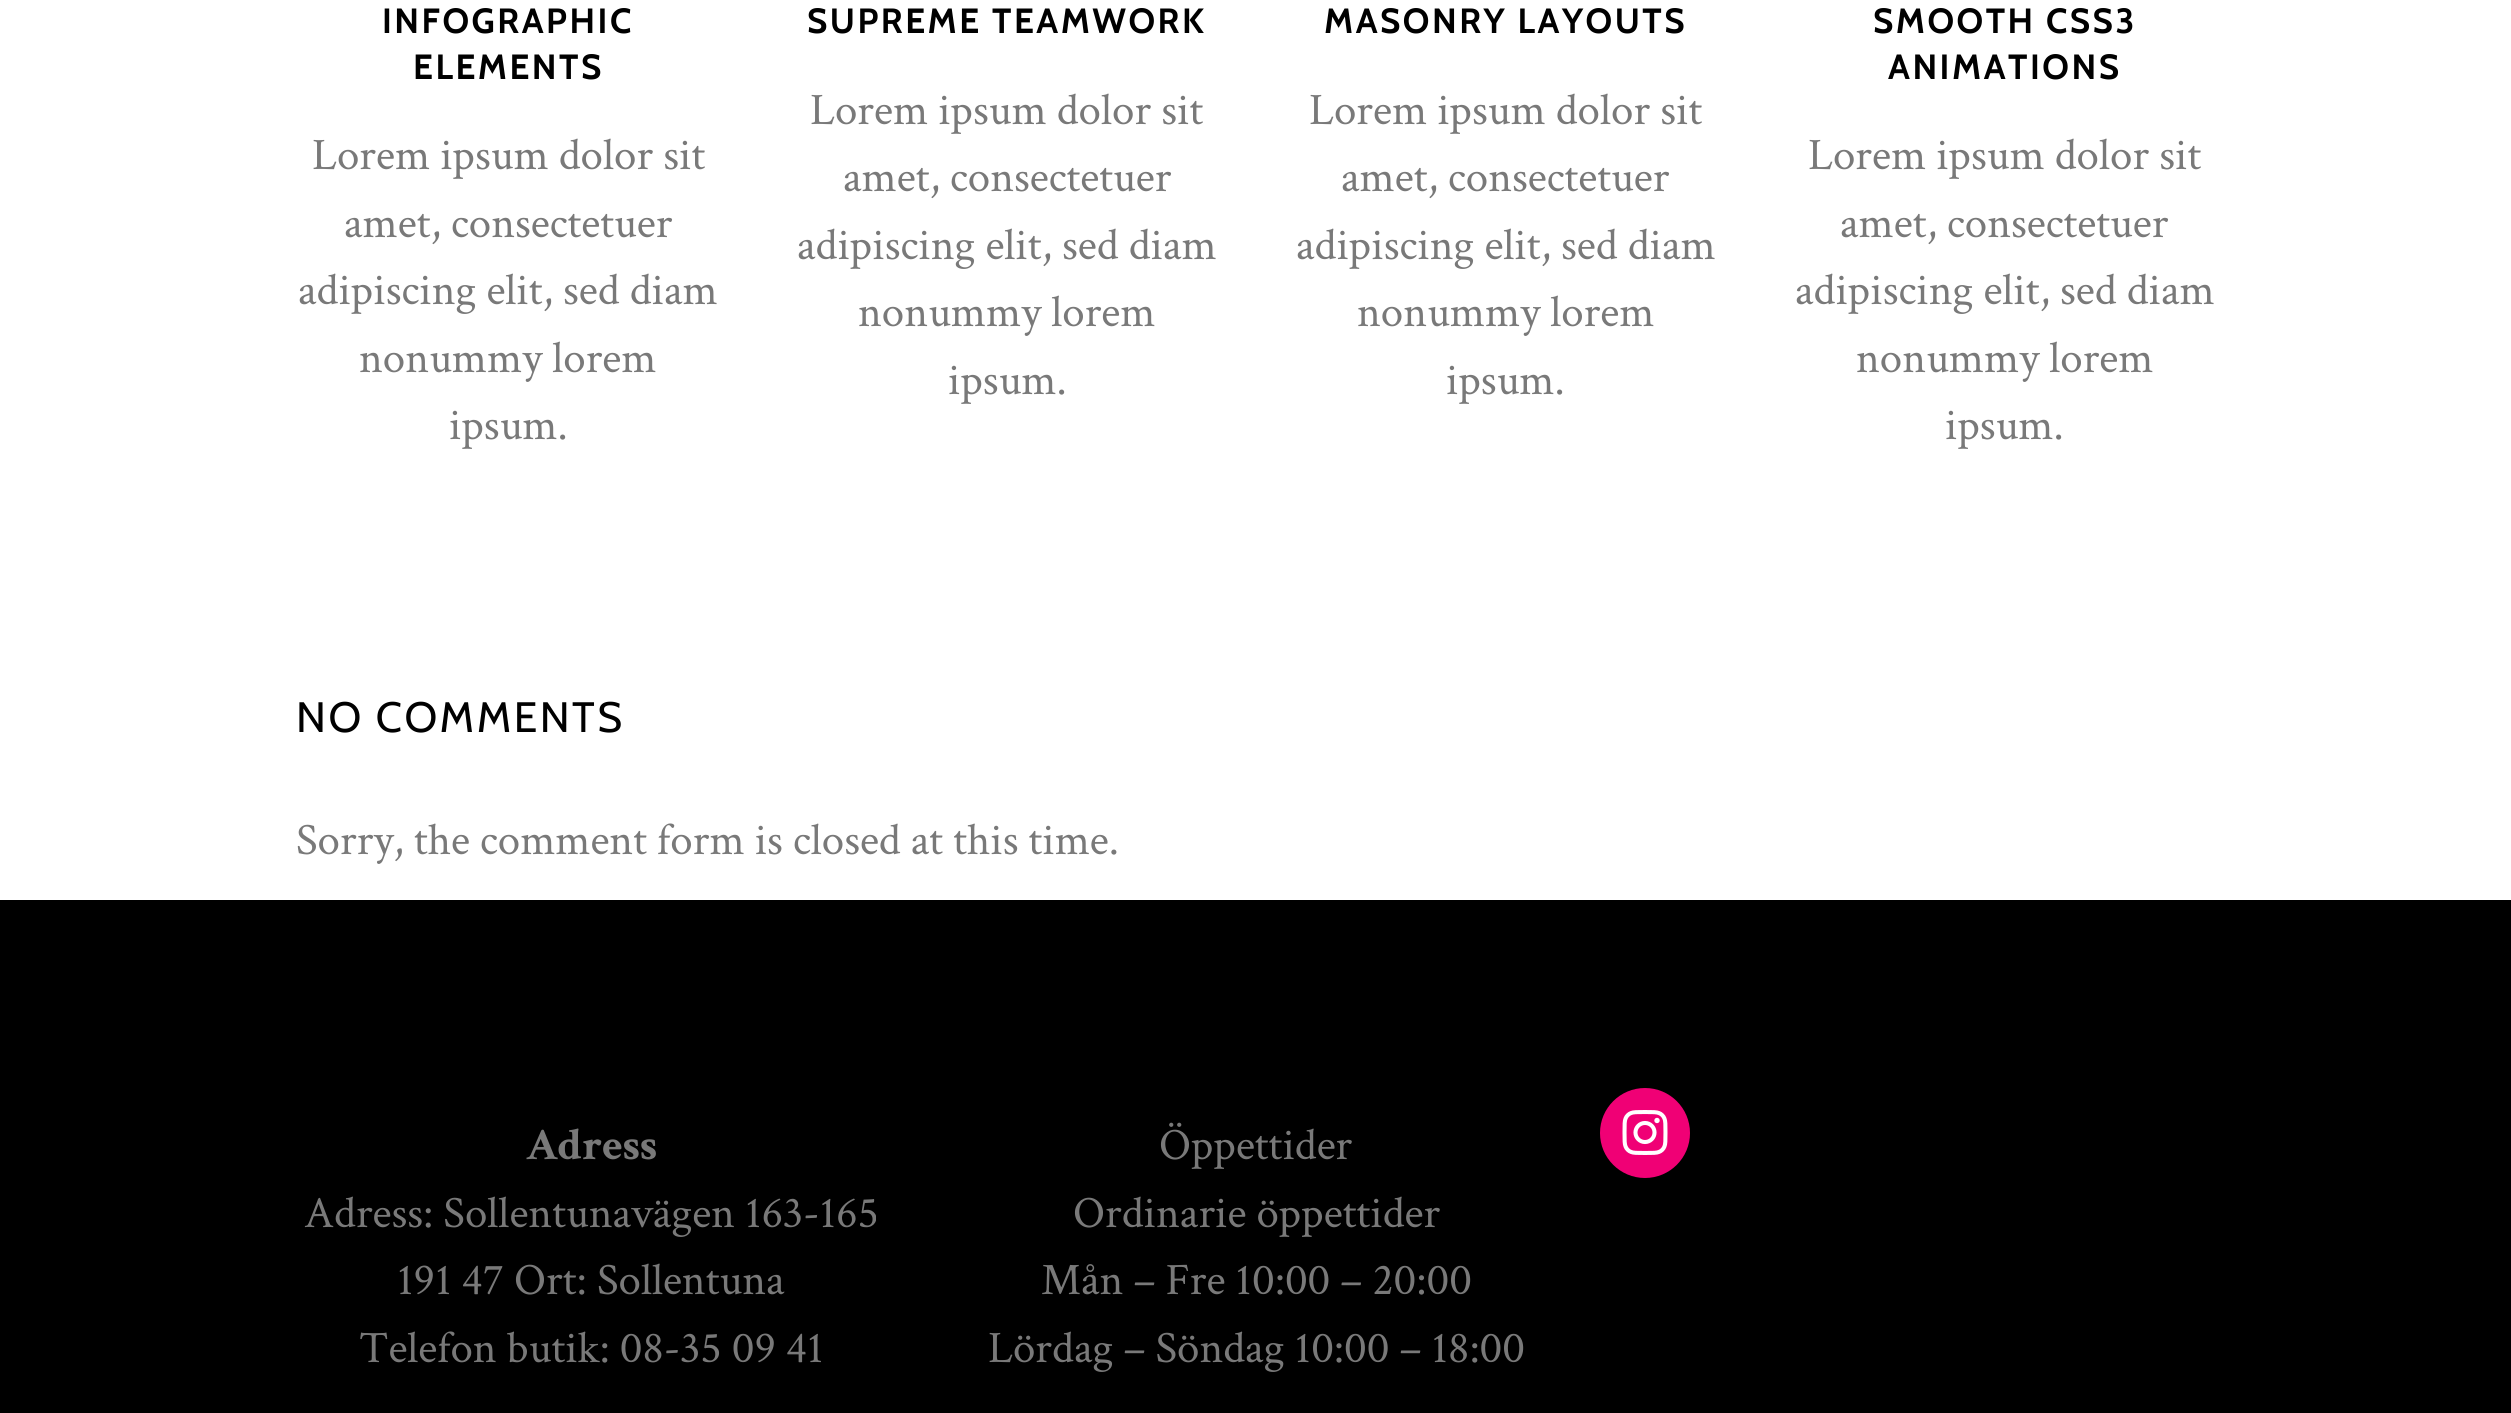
#include <cairo.h>
#include <math.h>
#include <stddef.h>

typedef struct { double x, y; const char *s; } line_t;

static void ink(cairo_t *ctx, unsigned color) {
    cairo_set_source_rgb(ctx, (color >> 16) / 255.0, (color >> 8 & 255) / 255.0, (color & 255) / 255.0);
}

static void write_spaced(cairo_t *ctx, double x, double y, const char *s, double letter, double word) {
    cairo_move_to(ctx, x, y);
    while (*s) {
        char ch[5] = {0};
        int n = 0;
        do ch[n++] = *s++; while ((*s & 0xC0) == 0x80);
        cairo_show_text(ctx, ch);
        cairo_rel_move_to(ctx, letter + word * (*ch == ' '), 0);
    }
}

static void paste(cairo_t *ctx, const char *path, double x, double y, double w, double h) {
    cairo_surface_t *image = cairo_image_surface_create_from_png(path);
    cairo_save(ctx);
    cairo_set_source_surface(ctx, image, x, y);
    cairo_rectangle(ctx, x, y, w, h);
    cairo_fill(ctx);
    cairo_restore(ctx);
    cairo_surface_destroy(image);
}

int main(void) {
    cairo_surface_t *surface = cairo_image_surface_create(CAIRO_FORMAT_RGB24, 2511, 1413);
    cairo_t *ctx = cairo_create(surface);
    cairo_font_options_t *options = cairo_font_options_create();
    cairo_font_options_set_hint_metrics(options, CAIRO_HINT_METRICS_OFF);
    cairo_font_options_set_hint_style(options, CAIRO_HINT_STYLE_NONE);
    cairo_set_font_options(ctx, options);
    cairo_set_miter_limit(ctx, 4);
    ink(ctx, 0xFFFFFF);
    cairo_paint(ctx);
    cairo_select_font_face(ctx, "Cabin", CAIRO_FONT_SLANT_NORMAL, CAIRO_FONT_WEIGHT_BOLD);
    cairo_set_font_size(ctx, 35);
    ink(ctx, 0x000000);
    write_spaced(ctx, 382, 33, "INFOGRAPHIC", 2.5, 0);
    write_spaced(ctx, 413, 79, "ELEMENTS", 2.5, 0);
    cairo_select_font_face(ctx, "Crimson Text", CAIRO_FONT_SLANT_NORMAL, CAIRO_FONT_WEIGHT_NORMAL);
    cairo_set_font_size(ctx, 45);
    ink(ctx, 0x797979);
    {
        static const line_t items[] = {
            {312, 169, "Lorem ipsum dolor sit"},
            {344, 237, "amet, consectetuer"},
            {298, 304, "adipiscing elit, sed diam"},
            {359, 372, "nonummy lorem"},
            {449, 439, "ipsum."},
        };
        for (size_t i = 0; i < sizeof items / sizeof *items; i++) {
            cairo_move_to(ctx, items[i].x, items[i].y);
            cairo_show_text(ctx, items[i].s);
        }
    }
    cairo_select_font_face(ctx, "Cabin", CAIRO_FONT_SLANT_NORMAL, CAIRO_FONT_WEIGHT_BOLD);
    cairo_set_font_size(ctx, 35);
    ink(ctx, 0x000000);
    write_spaced(ctx, 807, 33, "SUPREME TEAMWORK", 2.5, 0);
    cairo_select_font_face(ctx, "Crimson Text", CAIRO_FONT_SLANT_NORMAL, CAIRO_FONT_WEIGHT_NORMAL);
    cairo_set_font_size(ctx, 45);
    ink(ctx, 0x797979);
    {
        static const line_t items[] = {
            {810, 124, "Lorem ipsum dolor sit"},
            {843, 191, "amet, consectetuer"},
            {797, 259, "adipiscing elit, sed diam"},
            {858, 326, "nonummy lorem"},
            {948, 394, "ipsum."},
        };
        for (size_t i = 0; i < sizeof items / sizeof *items; i++) {
            cairo_move_to(ctx, items[i].x, items[i].y);
            cairo_show_text(ctx, items[i].s);
        }
    }
    cairo_select_font_face(ctx, "Cabin", CAIRO_FONT_SLANT_NORMAL, CAIRO_FONT_WEIGHT_BOLD);
    cairo_set_font_size(ctx, 35);
    ink(ctx, 0x000000);
    write_spaced(ctx, 1324, 33, "MASONRY LAYOUTS", 2.5, 0);
    cairo_select_font_face(ctx, "Crimson Text", CAIRO_FONT_SLANT_NORMAL, CAIRO_FONT_WEIGHT_NORMAL);
    cairo_set_font_size(ctx, 45);
    ink(ctx, 0x797979);
    {
        static const line_t items[] = {
            {1309, 124, "Lorem ipsum dolor sit"},
            {1341, 191, "amet, consectetuer"},
            {1296, 259, "adipiscing elit, sed diam"},
            {1357, 326, "nonummy lorem"},
            {1446, 394, "ipsum."},
        };
        for (size_t i = 0; i < sizeof items / sizeof *items; i++) {
            cairo_move_to(ctx, items[i].x, items[i].y);
            cairo_show_text(ctx, items[i].s);
        }
    }
    cairo_select_font_face(ctx, "Cabin", CAIRO_FONT_SLANT_NORMAL, CAIRO_FONT_WEIGHT_BOLD);
    cairo_set_font_size(ctx, 35);
    ink(ctx, 0x000000);
    write_spaced(ctx, 1873, 33, "SMOOTH CSS3", 2.5, 0);
    write_spaced(ctx, 1888, 79, "ANIMATIONS", 2.5, 0);
    cairo_select_font_face(ctx, "Crimson Text", CAIRO_FONT_SLANT_NORMAL, CAIRO_FONT_WEIGHT_NORMAL);
    cairo_set_font_size(ctx, 45);
    ink(ctx, 0x797979);
    {
        static const line_t items[] = {
            {1808, 169, "Lorem ipsum dolor sit"},
            {1840, 237, "amet, consectetuer"},
            {1795, 304, "adipiscing elit, sed diam"},
            {1856, 372, "nonummy lorem"},
            {1945, 439, "ipsum."},
        };
        for (size_t i = 0; i < sizeof items / sizeof *items; i++) {
            cairo_move_to(ctx, items[i].x, items[i].y);
            cairo_show_text(ctx, items[i].s);
        }
    }
    cairo_select_font_face(ctx, "Cabin", CAIRO_FONT_SLANT_NORMAL, CAIRO_FONT_WEIGHT_NORMAL);
    cairo_set_font_size(ctx, 42.5);
    ink(ctx, 0x000000);
    write_spaced(ctx, 296, 732, "NO COMMENTS", 2.5, 0);
    cairo_select_font_face(ctx, "Crimson Text", CAIRO_FONT_SLANT_NORMAL, CAIRO_FONT_WEIGHT_NORMAL);
    cairo_set_font_size(ctx, 45);
    ink(ctx, 0x797979);
    cairo_move_to(ctx, 296, 854);
    cairo_show_text(ctx, "Sorry, the comment form is closed at this time.");
    ink(ctx, 0x000000);
    cairo_rectangle(ctx, 0, 900, 2511, 513);
    cairo_fill(ctx);
    cairo_select_font_face(ctx, "Crimson Text", CAIRO_FONT_SLANT_NORMAL, CAIRO_FONT_WEIGHT_BOLD);
    ink(ctx, 0x797979);
    cairo_move_to(ctx, 526, 1159);
    cairo_show_text(ctx, "Adress");
    cairo_select_font_face(ctx, "Crimson Text", CAIRO_FONT_SLANT_NORMAL, CAIRO_FONT_WEIGHT_NORMAL);
    {
        static const line_t items[] = {
            {304, 1227, "Adress: Sollentunavägen 163-165"},
            {397, 1294, "191 47 Ort: Sollentuna"},
            {359, 1362, "Telefon butik: 08-35 09 41"},
            {1159, 1159, "Öppettider"},
            {1073, 1227, "Ordinarie öppettider"},
            {1041, 1294, "Mån – Fre 10:00 – 20:00"},
            {988, 1362, "Lördag – Söndag 10:00 – 18:00"},
        };
        for (size_t i = 0; i < sizeof items / sizeof *items; i++) {
            cairo_move_to(ctx, items[i].x, items[i].y);
            cairo_show_text(ctx, items[i].s);
        }
    }
    ink(ctx, 0xF00075);
    cairo_new_path(ctx);
    cairo_arc(ctx, 1645, 1133, 45, 0, 2 * M_PI);
    cairo_fill(ctx);
    paste(ctx, "media/1.png", 1622, 1110, 46, 45);
    cairo_surface_write_to_png(surface, "image.png");
    cairo_font_options_destroy(options);
    cairo_destroy(ctx);
    cairo_surface_destroy(surface);
    return 0;
}
